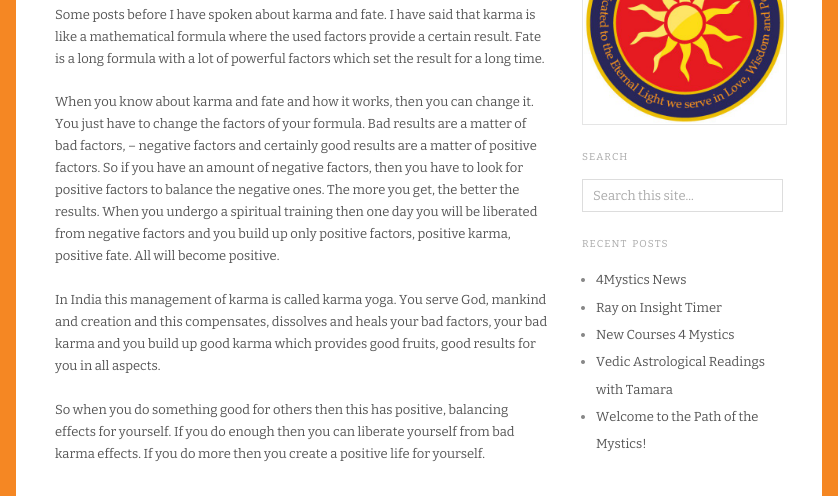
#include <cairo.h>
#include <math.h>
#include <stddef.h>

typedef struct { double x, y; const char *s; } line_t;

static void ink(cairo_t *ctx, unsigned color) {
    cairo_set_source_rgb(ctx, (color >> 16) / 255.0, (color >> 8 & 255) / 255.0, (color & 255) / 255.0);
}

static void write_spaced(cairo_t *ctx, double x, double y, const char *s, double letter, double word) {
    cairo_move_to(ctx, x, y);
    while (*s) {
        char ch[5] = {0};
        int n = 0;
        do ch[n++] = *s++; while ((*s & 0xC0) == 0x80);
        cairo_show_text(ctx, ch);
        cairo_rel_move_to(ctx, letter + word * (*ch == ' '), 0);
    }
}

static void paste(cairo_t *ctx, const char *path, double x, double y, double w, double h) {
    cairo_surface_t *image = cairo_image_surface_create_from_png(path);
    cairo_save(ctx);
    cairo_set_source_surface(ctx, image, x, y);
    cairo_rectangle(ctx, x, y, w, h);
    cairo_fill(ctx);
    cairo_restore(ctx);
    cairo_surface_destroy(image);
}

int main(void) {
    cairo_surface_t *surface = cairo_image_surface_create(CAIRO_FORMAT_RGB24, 838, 496);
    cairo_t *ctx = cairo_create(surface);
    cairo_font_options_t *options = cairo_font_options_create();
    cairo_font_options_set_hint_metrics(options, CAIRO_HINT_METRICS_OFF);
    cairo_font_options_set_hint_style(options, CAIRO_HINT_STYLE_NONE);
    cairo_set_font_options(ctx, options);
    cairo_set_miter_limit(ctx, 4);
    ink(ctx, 0xF58723);
    cairo_paint(ctx);
    ink(ctx, 0xFFFFFF);
    cairo_rectangle(ctx, 16, 0, 806, 496);
    cairo_fill(ctx);
    cairo_select_font_face(ctx, "Bitter Thin", CAIRO_FONT_SLANT_NORMAL, CAIRO_FONT_WEIGHT_NORMAL);
    cairo_set_font_size(ctx, 13);
    ink(ctx, 0x555555);
    {
        static const line_t items[] = {
            {55, 19, "Some posts before I have spoken about karma and fate. I have said that karma is"},
            {55, 41, "like a mathematical formula where the used factors provide a certain result. Fate"},
            {55, 63, "is a long formula with a lot of powerful factors which set the result for a long time."},
            {55, 106, "When you know about karma and fate and how it works, then you can change it."},
            {55, 128, "You just have to change the factors of your formula. Bad results are a matter of"},
            {55, 150, "bad factors, – negative factors and certainly good results are a matter of positive"},
            {55, 172, "factors. So if you have an amount of negative factors, then you have to look for"},
            {55, 194, "positive factors to balance the negative ones. The more you get, the better the"},
            {55, 216, "results. When you undergo a spiritual training then one day you will be liberated"},
            {55, 238, "from negative factors and you build up only positive factors, positive karma,"},
            {55, 260, "positive fate. All will become positive."},
            {55, 304, "In India this management of karma is called karma yoga. You serve God, mankind"},
            {55, 326, "and creation and this compensates, dissolves and heals your bad factors, your bad"},
            {55, 348, "karma and you build up good karma which provides good fruits, good results for"},
            {55, 370, "you in all aspects."},
            {55, 414, "So when you do something good for others then this has positive, balancing"},
            {55, 436, "effects for yourself. If you do enough then you can liberate yourself from bad"},
            {55, 458, "karma effects. If you do more then you create a positive life for yourself."},
        };
        for (size_t i = 0; i < sizeof items / sizeof *items; i++) {
            cairo_move_to(ctx, items[i].x, items[i].y);
            cairo_show_text(ctx, items[i].s);
        }
    }
    cairo_rectangle(ctx, 582.5, -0.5, 204, 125);
    ink(ctx, 0xE5E5E5);
    cairo_set_line_width(ctx, 1);
    cairo_stroke(ctx);
    paste(ctx, "media/1.png", 584, 0, 201, 123);
    cairo_set_font_size(ctx, 10);
    ink(ctx, 0xAAAAAA);
    write_spaced(ctx, 582, 160, "SEARCH", 1, 0);
    cairo_rectangle(ctx, 582.5, 179.5, 200, 32);
    ink(ctx, 0xDDDDDD);
    cairo_stroke(ctx);
    cairo_set_font_size(ctx, 13);
    ink(ctx, 0xAAAAAA);
    cairo_move_to(ctx, 593, 200);
    cairo_show_text(ctx, "Search this site...");
    cairo_set_font_size(ctx, 10);
    write_spaced(ctx, 582, 247, "RECENT POSTS", 1, 2);
    ink(ctx, 0x888888);
    cairo_new_path(ctx);
    cairo_arc(ctx, 583, 280, 2, 0, 2 * M_PI);
    cairo_fill(ctx);
    cairo_set_font_size(ctx, 13);
    ink(ctx, 0x555555);
    cairo_move_to(ctx, 596, 284);
    cairo_show_text(ctx, "4Mystics News");
    ink(ctx, 0x888888);
    cairo_new_path(ctx);
    cairo_arc(ctx, 583, 308, 2, 0, 2 * M_PI);
    cairo_fill(ctx);
    ink(ctx, 0x555555);
    cairo_move_to(ctx, 596, 312);
    cairo_show_text(ctx, "Ray on Insight Timer");
    ink(ctx, 0x888888);
    cairo_new_path(ctx);
    cairo_arc(ctx, 583, 335, 2, 0, 2 * M_PI);
    cairo_fill(ctx);
    ink(ctx, 0x555555);
    cairo_move_to(ctx, 596, 339);
    cairo_show_text(ctx, "New Courses 4 Mystics");
    ink(ctx, 0x888888);
    cairo_new_path(ctx);
    cairo_arc(ctx, 583, 362, 2, 0, 2 * M_PI);
    cairo_fill(ctx);
    ink(ctx, 0x555555);
    cairo_move_to(ctx, 596, 366);
    cairo_show_text(ctx, "Vedic Astrological Readings");
    cairo_move_to(ctx, 596, 394);
    cairo_show_text(ctx, "with Tamara");
    ink(ctx, 0x888888);
    cairo_new_path(ctx);
    cairo_arc(ctx, 583, 417, 2, 0, 2 * M_PI);
    cairo_fill(ctx);
    ink(ctx, 0x555555);
    cairo_move_to(ctx, 596, 421);
    cairo_show_text(ctx, "Welcome to the Path of the");
    cairo_move_to(ctx, 596, 448);
    cairo_show_text(ctx, "Mystics!");
    cairo_surface_write_to_png(surface, "image.png");
    cairo_font_options_destroy(options);
    cairo_destroy(ctx);
    cairo_surface_destroy(surface);
    return 0;
}
